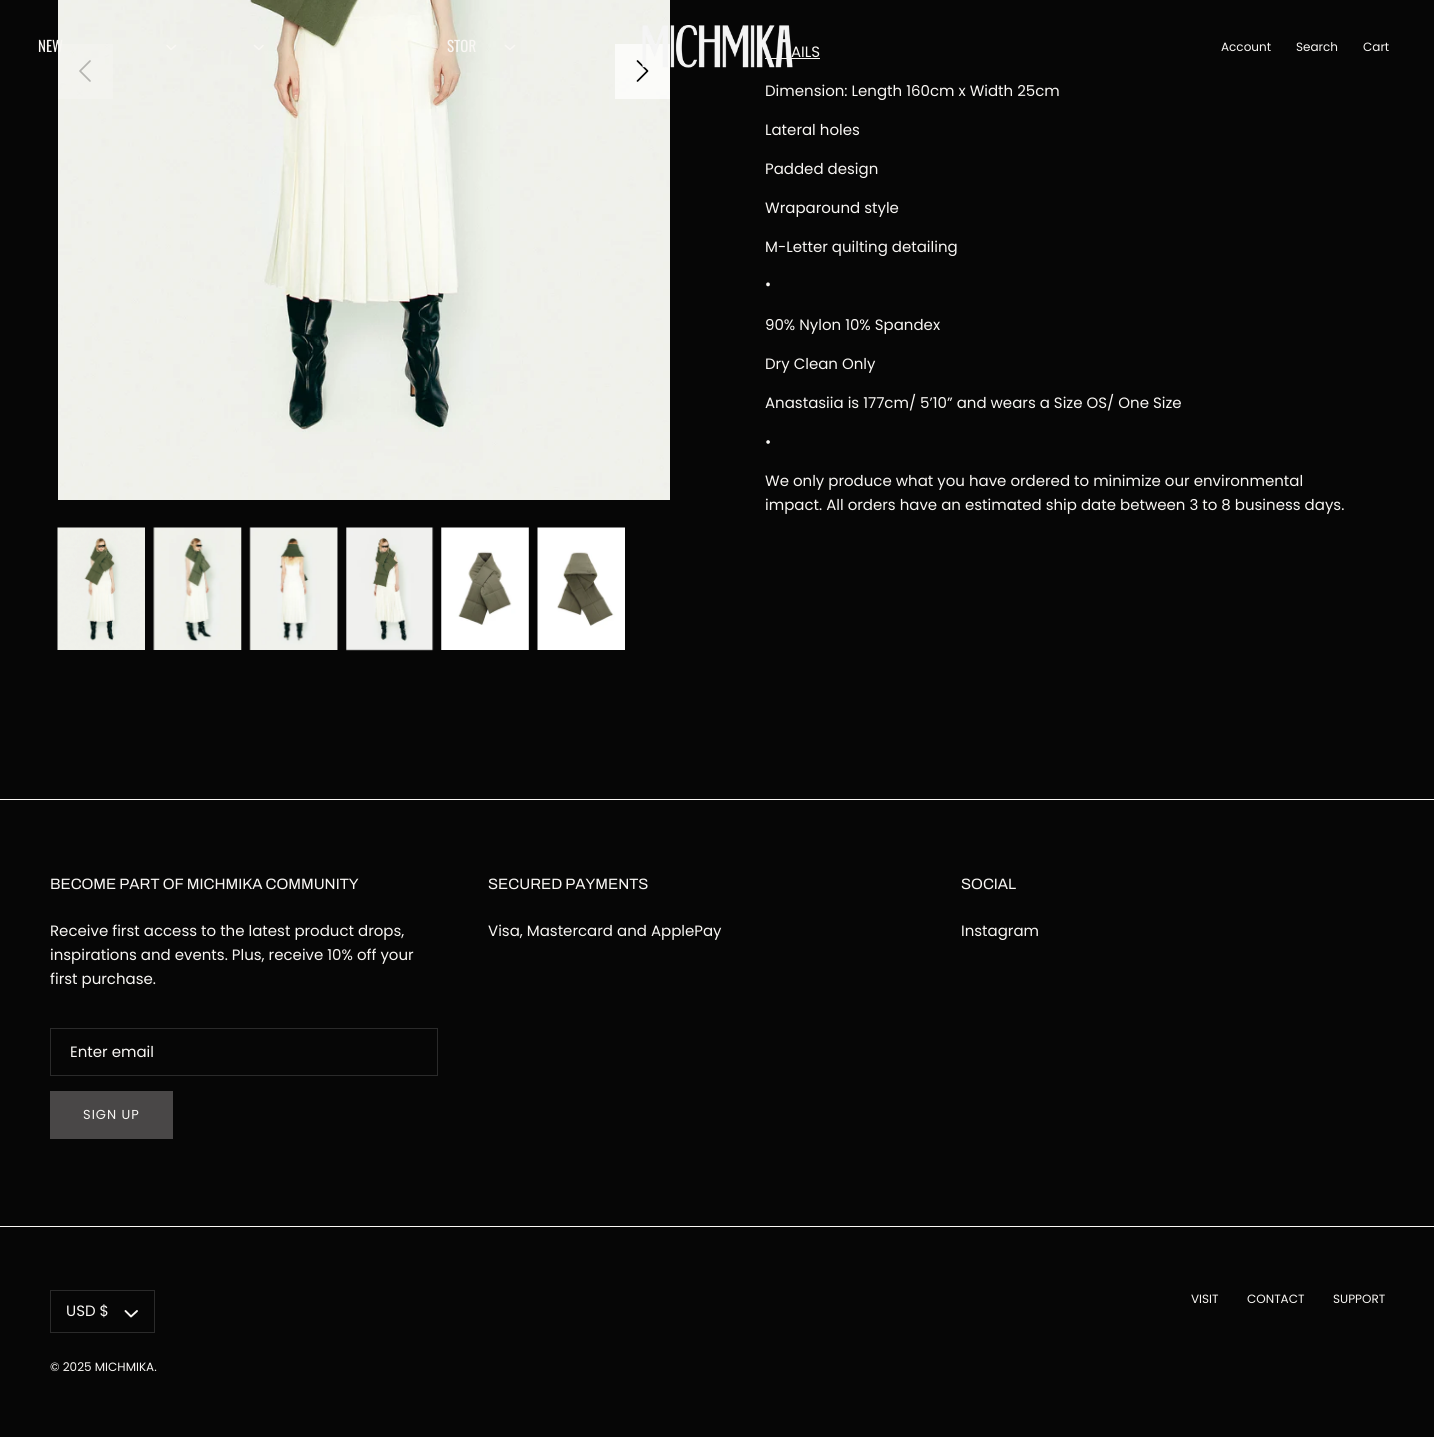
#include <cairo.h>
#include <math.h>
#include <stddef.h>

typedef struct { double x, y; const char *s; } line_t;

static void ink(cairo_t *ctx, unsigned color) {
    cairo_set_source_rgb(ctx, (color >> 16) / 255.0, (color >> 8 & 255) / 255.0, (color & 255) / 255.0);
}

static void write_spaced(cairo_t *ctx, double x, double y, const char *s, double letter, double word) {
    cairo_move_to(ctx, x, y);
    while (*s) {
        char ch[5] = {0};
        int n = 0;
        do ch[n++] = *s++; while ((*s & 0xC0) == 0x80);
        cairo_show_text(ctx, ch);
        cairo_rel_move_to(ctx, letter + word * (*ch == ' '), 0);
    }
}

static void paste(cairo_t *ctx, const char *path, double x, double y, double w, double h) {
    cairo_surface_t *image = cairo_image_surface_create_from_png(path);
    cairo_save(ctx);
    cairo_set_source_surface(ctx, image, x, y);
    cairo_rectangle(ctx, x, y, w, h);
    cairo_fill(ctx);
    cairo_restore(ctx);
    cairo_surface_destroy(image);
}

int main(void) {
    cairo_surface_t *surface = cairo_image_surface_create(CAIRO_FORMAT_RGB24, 1434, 1437);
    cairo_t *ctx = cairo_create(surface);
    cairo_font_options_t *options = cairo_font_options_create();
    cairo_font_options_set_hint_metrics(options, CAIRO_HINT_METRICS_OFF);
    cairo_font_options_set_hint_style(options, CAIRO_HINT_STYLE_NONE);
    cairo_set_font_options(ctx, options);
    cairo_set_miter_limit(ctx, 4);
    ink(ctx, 0x060606);
    cairo_paint(ctx);
    paste(ctx, "media/2.png", 58, 0, 612, 500);
    cairo_set_source_rgba(ctx, 1, 1, 1, 0.17);
    cairo_rectangle(ctx, 58, 44, 55, 55);
    cairo_fill(ctx);
    cairo_select_font_face(ctx, "Oswald", CAIRO_FONT_SLANT_NORMAL, CAIRO_FONT_WEIGHT_NORMAL);
    cairo_set_font_size(ctx, 15);
    ink(ctx, 0xF9F7F4);
    cairo_move_to(ctx, 38, 52);
    cairo_show_text(ctx, "NEW");
    cairo_new_path(ctx);
    cairo_move_to(ctx, 167, 45.5);
    cairo_line_to(ctx, 171, 49.5);
    cairo_line_to(ctx, 175.5, 45.5);
    cairo_set_line_width(ctx, 1.5);
    cairo_set_line_cap(ctx, CAIRO_LINE_CAP_ROUND);
    cairo_set_line_join(ctx, CAIRO_LINE_JOIN_ROUND);
    cairo_stroke(ctx);
    cairo_new_path(ctx);
    cairo_move_to(ctx, 254.5, 45.5);
    cairo_line_to(ctx, 259, 49.5);
    cairo_line_to(ctx, 263, 45.5);
    cairo_stroke(ctx);
    cairo_new_path(ctx);
    cairo_move_to(ctx, 395.5, 45.5);
    cairo_line_to(ctx, 400, 49.5);
    cairo_line_to(ctx, 404.5, 45.5);
    cairo_stroke(ctx);
    cairo_move_to(ctx, 447, 52);
    cairo_show_text(ctx, "STOR");
    cairo_new_path(ctx);
    cairo_move_to(ctx, 505.5, 45.5);
    cairo_line_to(ctx, 510, 49.5);
    cairo_line_to(ctx, 514.5, 45.5);
    cairo_stroke(ctx);
    cairo_set_source_rgba(ctx, 1, 1, 1, 0.7);
    cairo_rectangle(ctx, 615, 44, 55, 55);
    cairo_fill(ctx);
    cairo_new_path(ctx);
    cairo_move_to(ctx, 637.5, 81);
    cairo_line_to(ctx, 647.5, 71);
    cairo_line_to(ctx, 637.5, 61);
    ink(ctx, 0x000000);
    cairo_set_line_width(ctx, 1.7);
    cairo_stroke(ctx);
    cairo_select_font_face(ctx, "Poppins", CAIRO_FONT_SLANT_NORMAL, CAIRO_FONT_WEIGHT_NORMAL);
    ink(ctx, 0xF9F7F4);
    cairo_move_to(ctx, 791, 57);
    cairo_show_text(ctx, "AILS");
    cairo_rectangle(ctx, 765, 58, 55, 1);
    cairo_fill(ctx);
    paste(ctx, "media/1.png", 642, 25, 151, 43);
    cairo_set_font_size(ctx, 12);
    {
        static const line_t items[] = {
            {1221, 51, "Account"},
            {1296, 51, "Search"},
            {1363, 51, "Cart"},
        };
        for (size_t i = 0; i < sizeof items / sizeof *items; i++) {
            cairo_move_to(ctx, items[i].x, items[i].y);
            cairo_show_text(ctx, items[i].s);
        }
    }
    cairo_new_path(ctx);
    cairo_move_to(ctx, 90, 81);
    cairo_line_to(ctx, 80, 71);
    cairo_line_to(ctx, 90, 61);
    ink(ctx, 0xB4B4B0);
    cairo_stroke(ctx);
    paste(ctx, "media/3.png", 57, 527, 88, 123);
    paste(ctx, "media/4.png", 153, 527, 89, 123);
    paste(ctx, "media/5.png", 249, 527, 89, 123);
    paste(ctx, "media/6.png", 346, 527, 88, 124);
    paste(ctx, "media/7.png", 441, 527, 88, 123);
    paste(ctx, "media/8.png", 537, 527, 88, 123);
    cairo_set_font_size(ctx, 15);
    ink(ctx, 0xF9F7F4);
    {
        static const line_t items[] = {
            {765, 96, "Dimension: Length 160cm x Width 25cm"},
            {765, 135, "Lateral holes"},
            {765, 174, "Padded design"},
            {765, 213, "Wraparound style"},
            {765, 252, "M-Letter quilting detailing"},
        };
        for (size_t i = 0; i < sizeof items / sizeof *items; i++) {
            cairo_move_to(ctx, items[i].x, items[i].y);
            cairo_show_text(ctx, items[i].s);
        }
    }
    cairo_select_font_face(ctx, "Roboto", CAIRO_FONT_SLANT_NORMAL, CAIRO_FONT_WEIGHT_NORMAL);
    cairo_set_font_size(ctx, 18);
    cairo_move_to(ctx, 765, 291);
    cairo_show_text(ctx, "•");
    cairo_select_font_face(ctx, "Poppins", CAIRO_FONT_SLANT_NORMAL, CAIRO_FONT_WEIGHT_NORMAL);
    cairo_set_font_size(ctx, 15);
    {
        static const line_t items[] = {
            {765, 330, "90% Nylon 10% Spandex"},
            {765, 369, "Dry Clean Only"},
            {765, 408, "Anastasiia is 177cm/ 5’10” and wears a Size OS/ One Size"},
            {765, 447, "•"},
            {765, 486, "We only produce what you have ordered to minimize our environmental"},
            {765, 510, "impact. All orders have an estimated ship date between 3 to 8 business days."},
        };
        for (size_t i = 0; i < sizeof items / sizeof *items; i++) {
            cairo_move_to(ctx, items[i].x, items[i].y);
            cairo_show_text(ctx, items[i].s);
        }
    }
    cairo_rectangle(ctx, 0, 799, 1434, 1);
    cairo_fill(ctx);
    cairo_select_font_face(ctx, "Archivo", CAIRO_FONT_SLANT_NORMAL, CAIRO_FONT_WEIGHT_NORMAL);
    cairo_move_to(ctx, 50, 889);
    cairo_show_text(ctx, "BECOME PART OF MICHMIKA COMMUNITY");
    cairo_select_font_face(ctx, "Poppins", CAIRO_FONT_SLANT_NORMAL, CAIRO_FONT_WEIGHT_NORMAL);
    {
        static const line_t items[] = {
            {50, 936, "Receive first access to the latest product drops,"},
            {50, 960, "inspirations and events. Plus, receive 10% off your"},
            {50, 984, "first purchase."},
        };
        for (size_t i = 0; i < sizeof items / sizeof *items; i++) {
            cairo_move_to(ctx, items[i].x, items[i].y);
            cairo_show_text(ctx, items[i].s);
        }
    }
    cairo_rectangle(ctx, 50.5, 1028.5, 387, 47);
    ink(ctx, 0x2A2A2A);
    cairo_set_line_width(ctx, 1);
    cairo_set_line_cap(ctx, CAIRO_LINE_CAP_BUTT);
    cairo_set_line_join(ctx, CAIRO_LINE_JOIN_MITER);
    cairo_stroke(ctx);
    ink(ctx, 0xF9F7F4);
    cairo_move_to(ctx, 70, 1057);
    cairo_show_text(ctx, "Enter email");
    ink(ctx, 0x494747);
    cairo_rectangle(ctx, 50, 1091, 123, 48);
    cairo_fill(ctx);
    cairo_set_font_size(ctx, 13);
    ink(ctx, 0xF9F7F4);
    write_spaced(ctx, 83, 1119, "SIGN UP", 1, 0);
    cairo_select_font_face(ctx, "Archivo", CAIRO_FONT_SLANT_NORMAL, CAIRO_FONT_WEIGHT_NORMAL);
    cairo_set_font_size(ctx, 15);
    cairo_move_to(ctx, 488, 889);
    cairo_show_text(ctx, "SECURED PAYMENTS");
    cairo_select_font_face(ctx, "Poppins", CAIRO_FONT_SLANT_NORMAL, CAIRO_FONT_WEIGHT_NORMAL);
    cairo_move_to(ctx, 488, 936);
    cairo_show_text(ctx, "Visa, Mastercard and ApplePay");
    cairo_select_font_face(ctx, "Archivo", CAIRO_FONT_SLANT_NORMAL, CAIRO_FONT_WEIGHT_NORMAL);
    cairo_move_to(ctx, 961, 889);
    cairo_show_text(ctx, "SOCIAL");
    cairo_select_font_face(ctx, "Poppins", CAIRO_FONT_SLANT_NORMAL, CAIRO_FONT_WEIGHT_NORMAL);
    cairo_move_to(ctx, 961, 936);
    cairo_show_text(ctx, "Instagram");
    cairo_rectangle(ctx, 0, 1226, 1434, 1);
    cairo_fill(ctx);
    cairo_set_font_size(ctx, 12);
    {
        static const line_t items[] = {
            {1191, 1303, "VISIT"},
            {1247, 1303, "CONTACT"},
            {1333, 1303, "SUPPORT"},
        };
        for (size_t i = 0; i < sizeof items / sizeof *items; i++) {
            cairo_move_to(ctx, items[i].x, items[i].y);
            cairo_show_text(ctx, items[i].s);
        }
    }
    cairo_rectangle(ctx, 50.5, 1290.5, 104, 42);
    ink(ctx, 0x2A2A2A);
    cairo_stroke(ctx);
    cairo_set_font_size(ctx, 15);
    ink(ctx, 0xF9F7F4);
    cairo_move_to(ctx, 66, 1316);
    cairo_show_text(ctx, "USD $");
    cairo_new_path(ctx);
    cairo_move_to(ctx, 125.5, 1311);
    cairo_line_to(ctx, 131, 1316.5);
    cairo_line_to(ctx, 137, 1311);
    cairo_set_line_width(ctx, 1.9);
    cairo_set_line_cap(ctx, CAIRO_LINE_CAP_ROUND);
    cairo_set_line_join(ctx, CAIRO_LINE_JOIN_ROUND);
    cairo_stroke(ctx);
    cairo_set_font_size(ctx, 12);
    cairo_move_to(ctx, 50, 1371);
    cairo_show_text(ctx, "© 2025 MICHMIKA.");
    cairo_surface_write_to_png(surface, "image.png");
    cairo_font_options_destroy(options);
    cairo_destroy(ctx);
    cairo_surface_destroy(surface);
    return 0;
}
